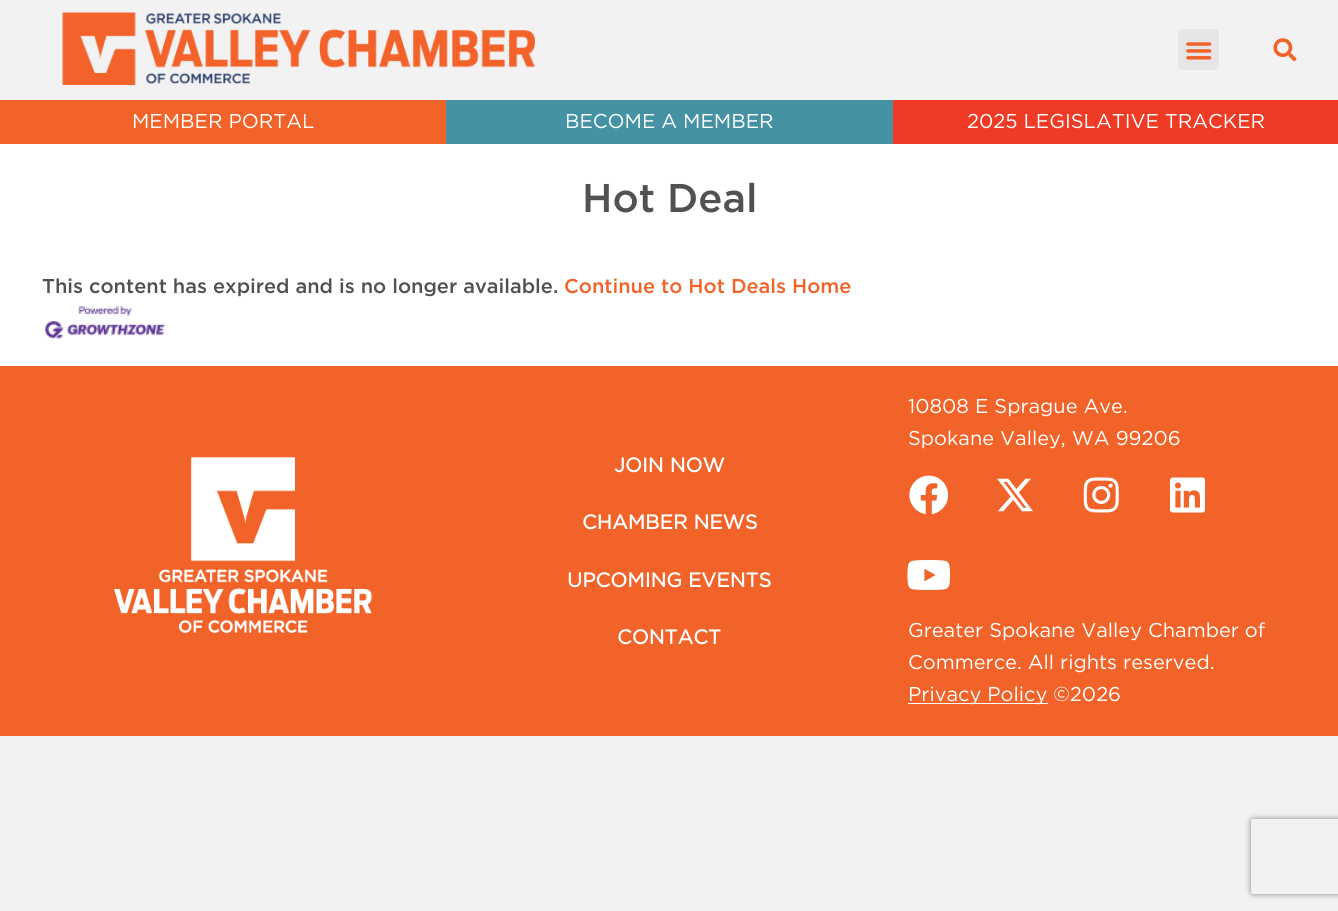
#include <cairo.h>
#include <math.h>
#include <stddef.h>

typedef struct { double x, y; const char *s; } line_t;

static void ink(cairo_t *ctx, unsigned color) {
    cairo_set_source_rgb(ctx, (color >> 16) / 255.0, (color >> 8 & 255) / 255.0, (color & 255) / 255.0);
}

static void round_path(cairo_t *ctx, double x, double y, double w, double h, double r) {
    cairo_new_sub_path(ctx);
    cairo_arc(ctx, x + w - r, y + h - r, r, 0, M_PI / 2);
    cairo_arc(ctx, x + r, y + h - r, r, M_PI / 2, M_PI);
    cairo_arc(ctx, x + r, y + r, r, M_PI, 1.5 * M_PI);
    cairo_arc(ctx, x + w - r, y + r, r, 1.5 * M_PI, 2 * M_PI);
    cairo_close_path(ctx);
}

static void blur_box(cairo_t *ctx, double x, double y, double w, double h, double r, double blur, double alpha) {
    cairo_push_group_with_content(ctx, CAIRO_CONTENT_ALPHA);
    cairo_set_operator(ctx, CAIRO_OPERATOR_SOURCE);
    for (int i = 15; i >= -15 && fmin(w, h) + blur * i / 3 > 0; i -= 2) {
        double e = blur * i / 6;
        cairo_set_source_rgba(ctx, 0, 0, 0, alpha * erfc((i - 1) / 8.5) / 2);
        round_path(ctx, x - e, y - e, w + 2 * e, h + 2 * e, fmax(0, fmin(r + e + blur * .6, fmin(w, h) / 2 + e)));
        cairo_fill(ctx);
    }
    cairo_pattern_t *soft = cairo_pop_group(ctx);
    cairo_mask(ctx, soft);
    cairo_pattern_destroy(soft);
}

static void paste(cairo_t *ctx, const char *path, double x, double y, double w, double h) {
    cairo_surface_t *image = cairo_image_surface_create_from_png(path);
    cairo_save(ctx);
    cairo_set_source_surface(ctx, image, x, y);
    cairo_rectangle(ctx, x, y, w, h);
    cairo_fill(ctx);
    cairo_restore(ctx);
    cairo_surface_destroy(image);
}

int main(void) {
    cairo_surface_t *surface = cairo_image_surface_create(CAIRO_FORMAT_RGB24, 1338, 911);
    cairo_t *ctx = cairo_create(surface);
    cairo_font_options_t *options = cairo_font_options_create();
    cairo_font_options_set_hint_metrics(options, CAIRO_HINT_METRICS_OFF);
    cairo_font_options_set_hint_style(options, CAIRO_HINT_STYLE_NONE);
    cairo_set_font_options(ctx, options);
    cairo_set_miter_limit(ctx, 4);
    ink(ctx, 0xF2F2F2);
    cairo_paint(ctx);
    ink(ctx, 0xFFFFFF);
    cairo_rectangle(ctx, 0, 144, 1338, 222);
    cairo_fill(ctx);
    paste(ctx, "media/1.png", 62, 12, 473, 73);
    ink(ctx, 0xE6E6E6);
    round_path(ctx, 1178, 29, 41, 41, 4);
    cairo_fill(ctx);
    paste(ctx, "media/2.png", 1186, 42, 26, 18);
    paste(ctx, "media/3.png", 1273, 38, 24, 24);
    ink(ctx, 0xF26329);
    cairo_rectangle(ctx, 0, 100, 446, 44);
    cairo_fill(ctx);
    cairo_select_font_face(ctx, "Gotham", CAIRO_FONT_SLANT_NORMAL, CAIRO_FONT_WEIGHT_NORMAL);
    cairo_set_font_size(ctx, 20);
    ink(ctx, 0xFFFFFF);
    cairo_move_to(ctx, 132, 128);
    cairo_show_text(ctx, "MEMBER PORTAL");
    ink(ctx, 0x4592A4);
    cairo_rectangle(ctx, 446, 100, 447, 44);
    cairo_fill(ctx);
    ink(ctx, 0xFFFFFF);
    cairo_move_to(ctx, 565, 128);
    cairo_show_text(ctx, "BECOME A MEMBER");
    ink(ctx, 0xEF3B25);
    cairo_rectangle(ctx, 893, 100, 445, 44);
    cairo_fill(ctx);
    ink(ctx, 0xFFFFFF);
    cairo_move_to(ctx, 967, 128);
    cairo_show_text(ctx, "2025 LEGISLATIVE TRACKER");
    cairo_select_font_face(ctx, "Gotham Medium", CAIRO_FONT_SLANT_NORMAL, CAIRO_FONT_WEIGHT_NORMAL);
    cairo_set_font_size(ctx, 40);
    ink(ctx, 0x515151);
    cairo_move_to(ctx, 582, 212);
    cairo_show_text(ctx, "Hot Deal");
    cairo_set_font_size(ctx, 20);
    cairo_move_to(ctx, 42, 293);
    cairo_show_text(ctx, "This content has expired and is no longer available.");
    ink(ctx, 0xF26329);
    cairo_move_to(ctx, 564, 293);
    cairo_show_text(ctx, "Continue to Hot Deals Home");
    paste(ctx, "media/4.png", 44, 306, 122, 33);
    cairo_rectangle(ctx, 0, 366, 1338, 370);
    cairo_fill(ctx);
    paste(ctx, "media/5.png", 114, 457, 259, 176);
    cairo_select_font_face(ctx, "Gotham", CAIRO_FONT_SLANT_NORMAL, CAIRO_FONT_WEIGHT_BOLD);
    ink(ctx, 0xFFFFFF);
    {
        static const line_t items[] = {
            {614, 472, "JOIN NOW"},
            {582, 529, "CHAMBER NEWS"},
            {567, 587, "UPCOMING EVENTS"},
            {617, 644, "CONTACT"},
        };
        for (size_t i = 0; i < sizeof items / sizeof *items; i++) {
            cairo_move_to(ctx, items[i].x, items[i].y);
            cairo_show_text(ctx, items[i].s);
        }
    }
    cairo_select_font_face(ctx, "Gotham", CAIRO_FONT_SLANT_NORMAL, CAIRO_FONT_WEIGHT_NORMAL);
    cairo_move_to(ctx, 908, 413);
    cairo_show_text(ctx, "10808 E Sprague Ave.");
    cairo_move_to(ctx, 908, 445);
    cairo_show_text(ctx, "Spokane Valley, WA 99206");
    paste(ctx, "media/6.png", 909, 475, 40, 40);
    paste(ctx, "media/7.png", 997, 478, 36, 34);
    paste(ctx, "media/8.png", 1083, 477, 36, 36);
    paste(ctx, "media/9.png", 1170, 477, 35, 36);
    paste(ctx, "media/10.png", 907, 560, 44, 30);
    cairo_move_to(ctx, 908, 637);
    cairo_show_text(ctx, "Greater Spokane Valley Chamber of");
    cairo_move_to(ctx, 908, 669);
    cairo_show_text(ctx, "Commerce. All rights reserved.");
    cairo_rectangle(ctx, 908, 703, 140, 1);
    cairo_fill(ctx);
    cairo_move_to(ctx, 908, 701);
    cairo_show_text(ctx, "Privacy Policy ©2026");
    cairo_save(ctx);
    cairo_set_fill_rule(ctx, CAIRO_FILL_RULE_EVEN_ODD);
    cairo_new_path(ctx);
    cairo_move_to(ctx, 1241, 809);
    cairo_line_to(ctx, 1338, 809);
    cairo_line_to(ctx, 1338, 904);
    cairo_line_to(ctx, 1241, 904);
    cairo_close_path(ctx);
    cairo_move_to(ctx, 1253.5, 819);
    cairo_line_to(ctx, 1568.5, 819);
    cairo_curve_to(ctx, 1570, 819, 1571, 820, 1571, 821.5);
    cairo_line_to(ctx, 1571, 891.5);
    cairo_curve_to(ctx, 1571, 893, 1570, 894, 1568.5, 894);
    cairo_line_to(ctx, 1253.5, 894);
    cairo_curve_to(ctx, 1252, 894, 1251, 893, 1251, 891.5);
    cairo_line_to(ctx, 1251, 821.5);
    cairo_curve_to(ctx, 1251, 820, 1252, 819, 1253.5, 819);
    cairo_close_path(ctx);
    cairo_clip(ctx);
    ink(ctx, 0x808080);
    blur_box(ctx, 1251, 819, 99, 75, 2.5, 3, 1);
    cairo_restore(ctx);
    cairo_surface_write_to_png(surface, "image.png");
    cairo_font_options_destroy(options);
    cairo_destroy(ctx);
    cairo_surface_destroy(surface);
    return 0;
}
